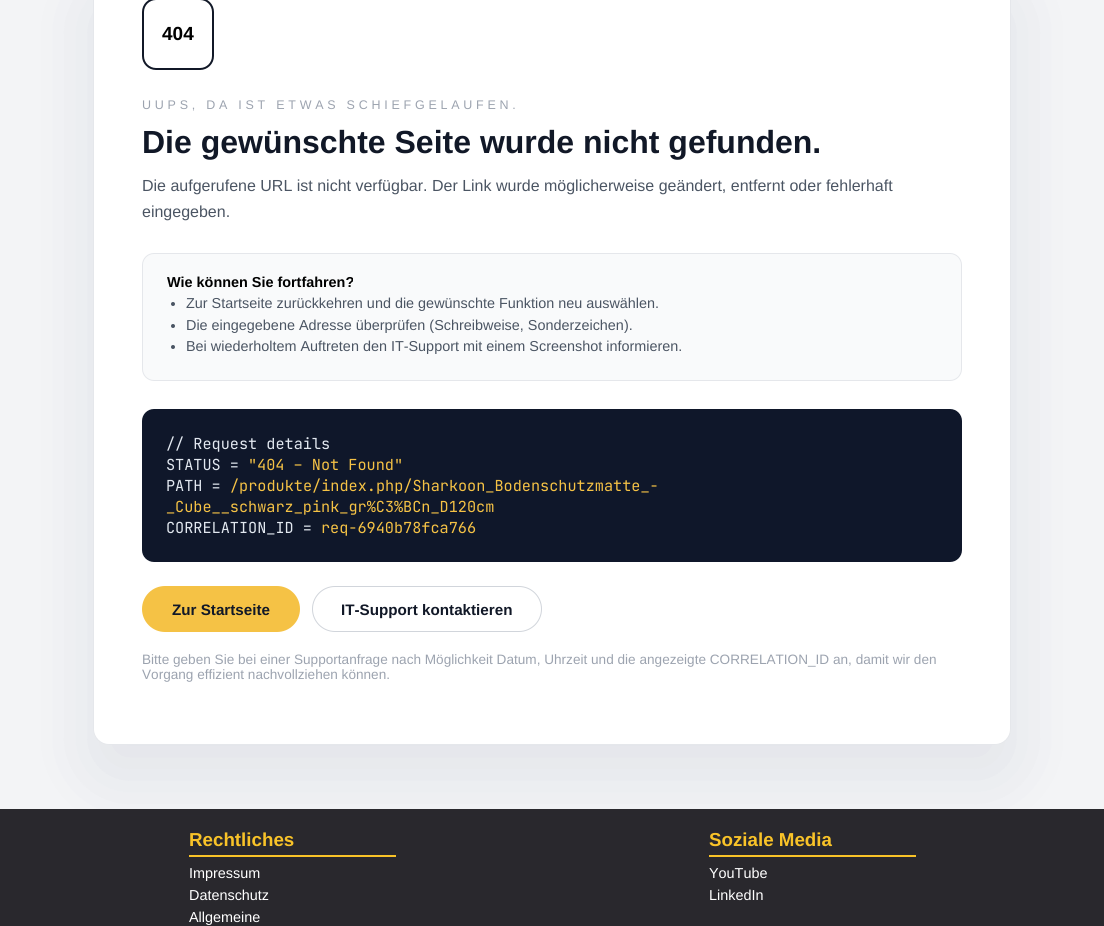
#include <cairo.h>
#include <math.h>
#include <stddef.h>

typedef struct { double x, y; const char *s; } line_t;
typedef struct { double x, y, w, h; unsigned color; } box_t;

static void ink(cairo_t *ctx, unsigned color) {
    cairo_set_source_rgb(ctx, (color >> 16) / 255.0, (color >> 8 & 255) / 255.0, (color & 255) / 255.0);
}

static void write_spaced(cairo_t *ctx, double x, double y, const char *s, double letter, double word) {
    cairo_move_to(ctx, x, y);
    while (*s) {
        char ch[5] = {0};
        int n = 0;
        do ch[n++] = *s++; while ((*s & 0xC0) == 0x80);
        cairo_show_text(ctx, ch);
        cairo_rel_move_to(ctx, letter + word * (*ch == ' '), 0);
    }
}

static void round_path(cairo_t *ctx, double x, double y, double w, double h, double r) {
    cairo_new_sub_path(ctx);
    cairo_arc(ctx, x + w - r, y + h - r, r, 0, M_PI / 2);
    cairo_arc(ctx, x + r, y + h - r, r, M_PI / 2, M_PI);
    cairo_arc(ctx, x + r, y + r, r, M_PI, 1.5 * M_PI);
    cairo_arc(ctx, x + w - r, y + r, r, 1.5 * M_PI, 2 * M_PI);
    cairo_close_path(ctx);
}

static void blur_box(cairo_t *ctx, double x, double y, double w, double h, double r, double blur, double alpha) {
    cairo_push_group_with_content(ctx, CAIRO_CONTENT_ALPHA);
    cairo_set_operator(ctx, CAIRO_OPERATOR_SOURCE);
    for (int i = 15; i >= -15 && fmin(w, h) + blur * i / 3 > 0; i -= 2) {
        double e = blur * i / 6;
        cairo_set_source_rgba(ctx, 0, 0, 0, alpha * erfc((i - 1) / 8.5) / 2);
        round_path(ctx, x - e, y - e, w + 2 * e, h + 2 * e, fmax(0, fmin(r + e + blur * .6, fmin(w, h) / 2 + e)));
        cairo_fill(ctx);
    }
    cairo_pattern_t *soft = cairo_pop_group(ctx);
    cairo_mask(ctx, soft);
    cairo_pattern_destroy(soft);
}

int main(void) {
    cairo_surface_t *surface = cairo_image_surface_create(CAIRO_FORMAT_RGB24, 1104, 926);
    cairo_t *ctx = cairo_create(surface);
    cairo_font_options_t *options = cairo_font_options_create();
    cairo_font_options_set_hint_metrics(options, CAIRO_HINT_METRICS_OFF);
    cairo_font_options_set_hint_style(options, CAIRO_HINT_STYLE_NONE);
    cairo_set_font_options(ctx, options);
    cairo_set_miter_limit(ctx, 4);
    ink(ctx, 0x29282D);
    cairo_paint(ctx);
    {
        static const box_t items[] = {
            {0, 0, 1104, 809, 0xF3F4F6},
            {189, 855, 207, 2, 0xF9C328},
            {709, 855, 207, 2, 0xF9C328},
        };
        for (size_t i = 0; i < sizeof items / sizeof *items; i++) {
            ink(ctx, items[i].color);
            cairo_rectangle(ctx, items[i].x, items[i].y, items[i].w, items[i].h);
            cairo_fill(ctx);
        }
    }
    ink(ctx, 0x0A1748);
    blur_box(ctx, 93, -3, 918, 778, 16, 35, 0.08);
    ink(ctx, 0xFFFFFF);
    round_path(ctx, 93.5, -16.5, 917, 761, 15.5);
    cairo_fill_preserve(ctx);
    ink(ctx, 0xE5E7EB);
    cairo_set_line_width(ctx, 1);
    cairo_stroke(ctx);
    round_path(ctx, 143, -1, 70, 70, 13);
    ink(ctx, 0x111827);
    cairo_set_line_width(ctx, 2);
    cairo_stroke(ctx);
    cairo_select_font_face(ctx, "Liberation Sans", CAIRO_FONT_SLANT_NORMAL, CAIRO_FONT_WEIGHT_BOLD);
    cairo_set_font_size(ctx, 19);
    ink(ctx, 0x000000);
    cairo_move_to(ctx, 162, 40);
    cairo_show_text(ctx, "404");
    cairo_select_font_face(ctx, "Liberation Sans", CAIRO_FONT_SLANT_NORMAL, CAIRO_FONT_WEIGHT_NORMAL);
    cairo_set_font_size(ctx, 12.5);
    ink(ctx, 0x9CA3AF);
    write_spaced(ctx, 142, 109, "UUPS, DA IST ETWAS SCHIEFGELAUFEN.", 3.75, 0);
    cairo_select_font_face(ctx, "Liberation Sans", CAIRO_FONT_SLANT_NORMAL, CAIRO_FONT_WEIGHT_BOLD);
    cairo_set_font_size(ctx, 32);
    ink(ctx, 0x111827);
    cairo_move_to(ctx, 142, 153);
    cairo_show_text(ctx, "Die gewünschte Seite wurde nicht gefunden.");
    cairo_select_font_face(ctx, "Liberation Sans", CAIRO_FONT_SLANT_NORMAL, CAIRO_FONT_WEIGHT_NORMAL);
    cairo_set_font_size(ctx, 16);
    ink(ctx, 0x4B5563);
    cairo_move_to(ctx, 142, 191);
    cairo_show_text(ctx, "Die aufgerufene URL ist nicht verfügbar. Der Link wurde möglicherweise geändert, entfernt oder fehlerhaft");
    cairo_move_to(ctx, 142, 217);
    cairo_show_text(ctx, "eingegeben.");
    ink(ctx, 0xF9FAFB);
    round_path(ctx, 142.5, 253.5, 819, 127, 11.5);
    cairo_fill_preserve(ctx);
    ink(ctx, 0xE5E7EB);
    cairo_set_line_width(ctx, 1);
    cairo_stroke(ctx);
    cairo_select_font_face(ctx, "Liberation Sans", CAIRO_FONT_SLANT_NORMAL, CAIRO_FONT_WEIGHT_BOLD);
    cairo_set_font_size(ctx, 14.4);
    ink(ctx, 0x000000);
    cairo_move_to(ctx, 167, 287);
    cairo_show_text(ctx, "Wie können Sie fortfahren?");
    ink(ctx, 0x4B5563);
    cairo_new_path(ctx);
    cairo_arc(ctx, 173, 304, 2, 0, 2 * M_PI);
    cairo_fill(ctx);
    cairo_select_font_face(ctx, "Liberation Sans", CAIRO_FONT_SLANT_NORMAL, CAIRO_FONT_WEIGHT_NORMAL);
    cairo_move_to(ctx, 186, 308);
    cairo_show_text(ctx, "Zur Startseite zurückkehren und die gewünschte Funktion neu auswählen.");
    cairo_new_path(ctx);
    cairo_arc(ctx, 173, 326, 2, 0, 2 * M_PI);
    cairo_fill(ctx);
    cairo_move_to(ctx, 186, 330);
    cairo_show_text(ctx, "Die eingegebene Adresse überprüfen (Schreibweise, Sonderzeichen).");
    cairo_new_path(ctx);
    cairo_arc(ctx, 173, 347, 2, 0, 2 * M_PI);
    cairo_fill(ctx);
    cairo_move_to(ctx, 186, 351);
    cairo_show_text(ctx, "Bei wiederholtem Auftreten den IT-Support mit einem Screenshot informieren.");
    ink(ctx, 0x0F172A);
    round_path(ctx, 142, 409, 820, 153, 12);
    cairo_fill(ctx);
    cairo_select_font_face(ctx, "JetBrains Mono", CAIRO_FONT_SLANT_NORMAL, CAIRO_FONT_WEIGHT_NORMAL);
    cairo_set_font_size(ctx, 15.2);
    ink(ctx, 0xE2E8F0);
    cairo_move_to(ctx, 166, 449);
    cairo_show_text(ctx, "// Request details");
    cairo_move_to(ctx, 166, 470);
    cairo_show_text(ctx, "STATUS =");
    ink(ctx, 0xF5C245);
    cairo_move_to(ctx, 248, 470);
    cairo_show_text(ctx, "\"404 – Not Found\"");
    ink(ctx, 0xE2E8F0);
    cairo_move_to(ctx, 166, 491);
    cairo_show_text(ctx, "PATH =");
    ink(ctx, 0xF5C245);
    cairo_move_to(ctx, 230, 491);
    cairo_show_text(ctx, "/produkte/index.php/Sharkoon_Bodenschutzmatte_-");
    cairo_move_to(ctx, 166, 512);
    cairo_show_text(ctx, "_Cube__schwarz_pink_gr%C3%BCn_D120cm");
    ink(ctx, 0xE2E8F0);
    cairo_move_to(ctx, 166, 533);
    cairo_show_text(ctx, "CORRELATION_ID =");
    ink(ctx, 0xF5C245);
    cairo_move_to(ctx, 321, 533);
    cairo_show_text(ctx, "req-6940b78fca766");
    round_path(ctx, 142, 586, 158, 46, 23);
    cairo_fill(ctx);
    cairo_select_font_face(ctx, "Liberation Sans", CAIRO_FONT_SLANT_NORMAL, CAIRO_FONT_WEIGHT_BOLD);
    ink(ctx, 0x111827);
    cairo_move_to(ctx, 172, 615);
    cairo_show_text(ctx, "Zur Startseite");
    round_path(ctx, 312.5, 586.5, 229, 45, 22.5);
    ink(ctx, 0xD1D5DB);
    cairo_stroke(ctx);
    ink(ctx, 0x111827);
    cairo_move_to(ctx, 341, 615);
    cairo_show_text(ctx, "IT-Support kontaktieren");
    cairo_select_font_face(ctx, "Liberation Sans", CAIRO_FONT_SLANT_NORMAL, CAIRO_FONT_WEIGHT_NORMAL);
    cairo_set_font_size(ctx, 13.6);
    ink(ctx, 0x9CA3AF);
    cairo_move_to(ctx, 142, 664);
    cairo_show_text(ctx, "Bitte geben Sie bei einer Supportanfrage nach Möglichkeit Datum, Uhrzeit und die angezeigte CORRELATION_ID an, damit wir den");
    cairo_move_to(ctx, 142, 679);
    cairo_show_text(ctx, "Vorgang effizient nachvollziehen können.");
    cairo_select_font_face(ctx, "Liberation Sans", CAIRO_FONT_SLANT_NORMAL, CAIRO_FONT_WEIGHT_BOLD);
    cairo_set_font_size(ctx, 18.75);
    ink(ctx, 0xF9C328);
    cairo_move_to(ctx, 189, 846);
    cairo_show_text(ctx, "Rechtliches");
    cairo_select_font_face(ctx, "Liberation Sans", CAIRO_FONT_SLANT_NORMAL, CAIRO_FONT_WEIGHT_NORMAL);
    cairo_set_font_size(ctx, 14.4);
    ink(ctx, 0xFFFFFF);
    {
        static const line_t items[] = {
            {189, 878, "Impressum"},
            {189, 900, "Datenschutz"},
            {189, 922, "Allgemeine"},
        };
        for (size_t i = 0; i < sizeof items / sizeof *items; i++) {
            cairo_move_to(ctx, items[i].x, items[i].y);
            cairo_show_text(ctx, items[i].s);
        }
    }
    cairo_select_font_face(ctx, "Liberation Sans", CAIRO_FONT_SLANT_NORMAL, CAIRO_FONT_WEIGHT_BOLD);
    cairo_set_font_size(ctx, 18.75);
    ink(ctx, 0xF9C328);
    cairo_move_to(ctx, 709, 846);
    cairo_show_text(ctx, "Soziale Media");
    cairo_select_font_face(ctx, "Liberation Sans", CAIRO_FONT_SLANT_NORMAL, CAIRO_FONT_WEIGHT_NORMAL);
    cairo_set_font_size(ctx, 14.4);
    ink(ctx, 0xFFFFFF);
    cairo_move_to(ctx, 709, 878);
    cairo_show_text(ctx, "YouTube");
    cairo_move_to(ctx, 709, 900);
    cairo_show_text(ctx, "LinkedIn");
    cairo_surface_write_to_png(surface, "image.png");
    cairo_font_options_destroy(options);
    cairo_destroy(ctx);
    cairo_surface_destroy(surface);
    return 0;
}
